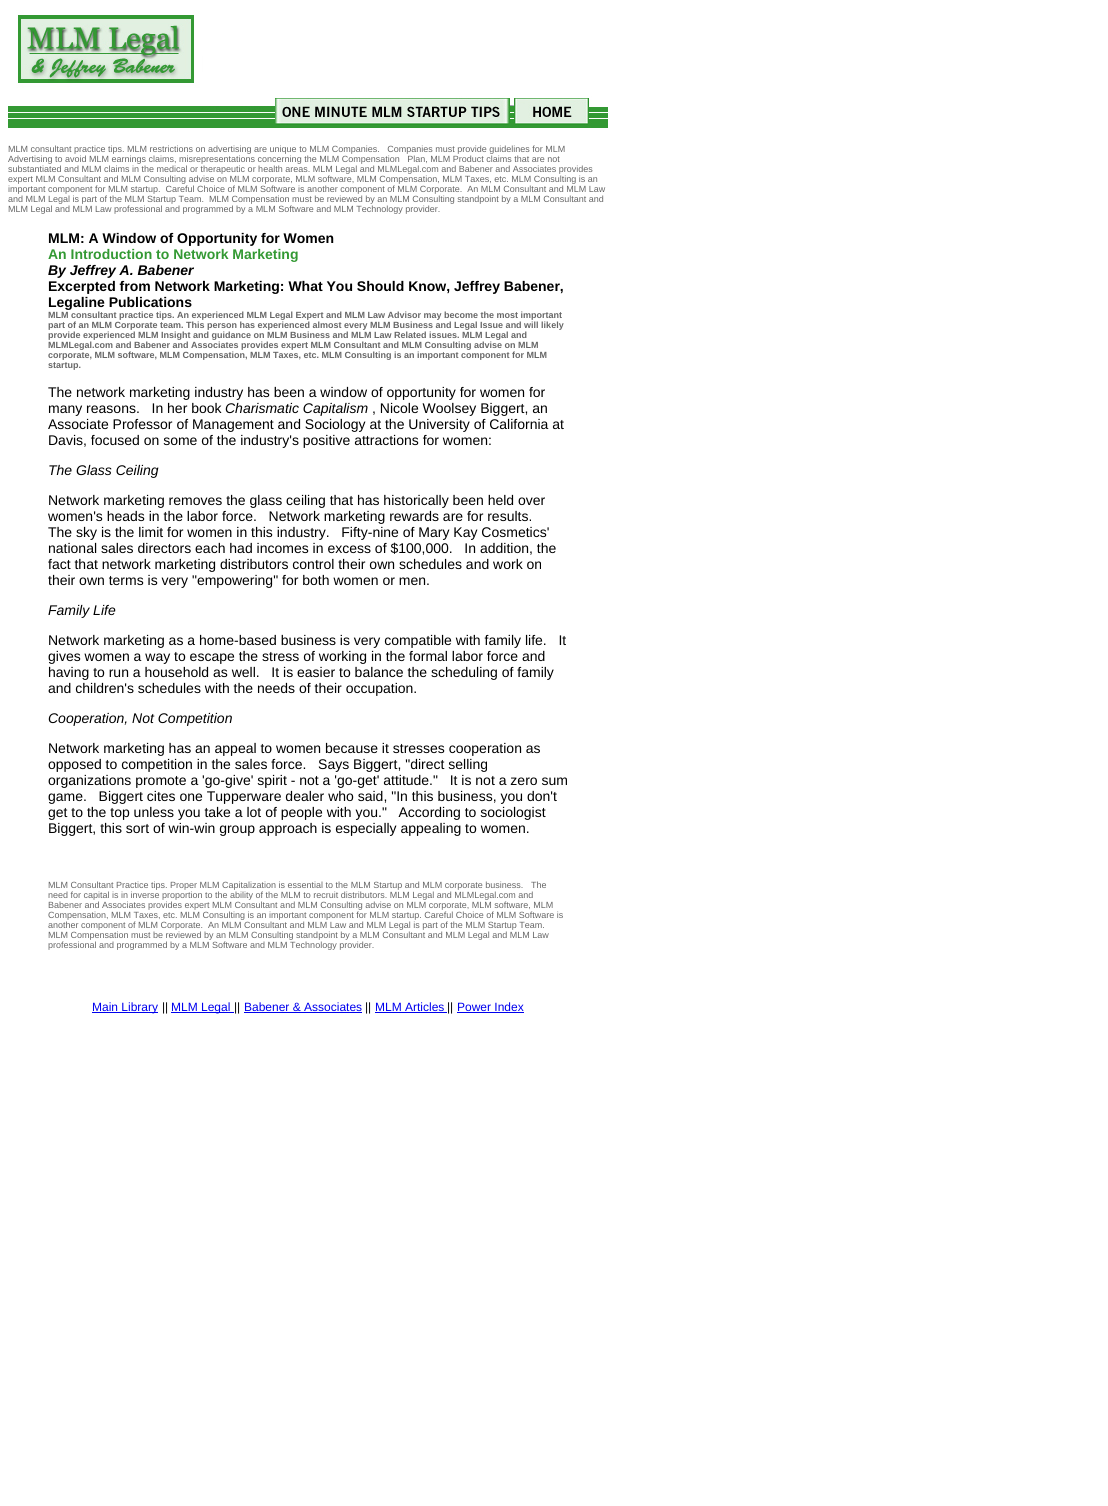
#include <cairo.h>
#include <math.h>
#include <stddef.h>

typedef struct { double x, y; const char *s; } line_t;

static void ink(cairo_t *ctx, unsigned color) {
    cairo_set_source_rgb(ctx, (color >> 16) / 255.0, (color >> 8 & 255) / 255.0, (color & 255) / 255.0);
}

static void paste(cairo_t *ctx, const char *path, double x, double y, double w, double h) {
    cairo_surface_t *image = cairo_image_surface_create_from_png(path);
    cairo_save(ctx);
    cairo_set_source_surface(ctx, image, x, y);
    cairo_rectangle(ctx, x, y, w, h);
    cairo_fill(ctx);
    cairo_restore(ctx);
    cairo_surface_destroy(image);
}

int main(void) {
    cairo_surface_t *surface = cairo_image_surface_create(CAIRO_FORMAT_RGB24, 1108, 1506);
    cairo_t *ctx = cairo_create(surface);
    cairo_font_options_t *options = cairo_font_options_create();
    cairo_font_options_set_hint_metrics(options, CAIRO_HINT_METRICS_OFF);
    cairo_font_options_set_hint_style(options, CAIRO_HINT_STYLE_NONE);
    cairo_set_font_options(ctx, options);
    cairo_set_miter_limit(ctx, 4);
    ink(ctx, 0xFFFFFF);
    cairo_paint(ctx);
    paste(ctx, "media/1.png", 8, 10, 600, 118);
    cairo_select_font_face(ctx, "Liberation Sans", CAIRO_FONT_SLANT_NORMAL, CAIRO_FONT_WEIGHT_NORMAL);
    cairo_set_font_size(ctx, 9);
    ink(ctx, 0x666666);
    {
        static const line_t items[] = {
            {8, 152, "MLM consultant practice tips. MLM restrictions on advertising are unique to MLM Companies.   Companies must provide guidelines for MLM"},
            {8, 162, "Advertising to avoid MLM earnings claims, misrepresentations concerning the MLM Compensation   Plan, MLM Product claims that are not"},
            {8, 172, "substantiated and MLM claims in the medical or therapeutic or health areas. MLM Legal and MLMLegal.com and Babener and Associates provides"},
            {8, 182, "expert MLM Consultant and MLM Consulting advise on MLM corporate, MLM software, MLM Compensation, MLM Taxes, etc. MLM Consulting is an"},
            {8, 192, "important component for MLM startup.  Careful Choice of MLM Software is another component of MLM Corporate.  An MLM Consultant and MLM Law"},
            {8, 202, "and MLM Legal is part of the MLM Startup Team.  MLM Compensation must be reviewed by an MLM Consulting standpoint by a MLM Consultant and"},
            {8, 212, "MLM Legal and MLM Law professional and programmed by a MLM Software and MLM Technology provider."},
        };
        for (size_t i = 0; i < sizeof items / sizeof *items; i++) {
            cairo_move_to(ctx, items[i].x, items[i].y);
            cairo_show_text(ctx, items[i].s);
        }
    }
    cairo_select_font_face(ctx, "Liberation Sans", CAIRO_FONT_SLANT_NORMAL, CAIRO_FONT_WEIGHT_BOLD);
    cairo_set_font_size(ctx, 14);
    ink(ctx, 0x000000);
    cairo_move_to(ctx, 48, 243);
    cairo_show_text(ctx, "MLM: A Window of Opportunity for Women");
    ink(ctx, 0x339933);
    cairo_move_to(ctx, 48, 259);
    cairo_show_text(ctx, "An Introduction to Network Marketing");
    cairo_select_font_face(ctx, "Liberation Sans", CAIRO_FONT_SLANT_ITALIC, CAIRO_FONT_WEIGHT_BOLD);
    ink(ctx, 0x000000);
    cairo_move_to(ctx, 48, 275);
    cairo_show_text(ctx, "By Jeffrey A. Babener");
    cairo_select_font_face(ctx, "Liberation Sans", CAIRO_FONT_SLANT_NORMAL, CAIRO_FONT_WEIGHT_BOLD);
    cairo_move_to(ctx, 48, 291);
    cairo_show_text(ctx, "Excerpted from Network Marketing: What You Should Know, Jeffrey Babener,");
    cairo_move_to(ctx, 48, 307);
    cairo_show_text(ctx, "Legaline Publications");
    cairo_set_font_size(ctx, 9);
    ink(ctx, 0x666666);
    {
        static const line_t items[] = {
            {48, 318, "MLM consultant practice tips. An experienced MLM Legal Expert and MLM Law Advisor may become the most important"},
            {48, 328, "part of an MLM Corporate team. This person has experienced almost every MLM Business and Legal Issue and will likely"},
            {48, 338, "provide experienced MLM Insight and guidance on MLM Business and MLM Law Related issues. MLM Legal and"},
            {48, 348, "MLMLegal.com and Babener and Associates provides expert MLM Consultant and MLM Consulting advise on MLM"},
            {48, 358, "corporate, MLM software, MLM Compensation, MLM Taxes, etc. MLM Consulting is an important component for MLM"},
            {48, 368, "startup."},
        };
        for (size_t i = 0; i < sizeof items / sizeof *items; i++) {
            cairo_move_to(ctx, items[i].x, items[i].y);
            cairo_show_text(ctx, items[i].s);
        }
    }
    cairo_select_font_face(ctx, "Liberation Sans", CAIRO_FONT_SLANT_NORMAL, CAIRO_FONT_WEIGHT_NORMAL);
    cairo_set_font_size(ctx, 14);
    ink(ctx, 0x000000);
    cairo_move_to(ctx, 48, 397);
    cairo_show_text(ctx, "The network marketing industry has been a window of opportunity for women for");
    cairo_move_to(ctx, 48, 413);
    cairo_show_text(ctx, "many reasons.   In her book");
    cairo_select_font_face(ctx, "Liberation Sans", CAIRO_FONT_SLANT_ITALIC, CAIRO_FONT_WEIGHT_NORMAL);
    cairo_move_to(ctx, 225, 413);
    cairo_show_text(ctx, "Charismatic Capitalism");
    cairo_select_font_face(ctx, "Liberation Sans", CAIRO_FONT_SLANT_NORMAL, CAIRO_FONT_WEIGHT_NORMAL);
    {
        static const line_t items[] = {
            {372, 413, ", Nicole Woolsey Biggert, an"},
            {48, 429, "Associate Professor of Management and Sociology at the University of California at"},
            {48, 445, "Davis, focused on some of the industry's positive attractions for women:"},
        };
        for (size_t i = 0; i < sizeof items / sizeof *items; i++) {
            cairo_move_to(ctx, items[i].x, items[i].y);
            cairo_show_text(ctx, items[i].s);
        }
    }
    cairo_select_font_face(ctx, "Liberation Sans", CAIRO_FONT_SLANT_ITALIC, CAIRO_FONT_WEIGHT_NORMAL);
    cairo_move_to(ctx, 48, 475);
    cairo_show_text(ctx, "The Glass Ceiling");
    cairo_select_font_face(ctx, "Liberation Sans", CAIRO_FONT_SLANT_NORMAL, CAIRO_FONT_WEIGHT_NORMAL);
    {
        static const line_t items[] = {
            {48, 505, "Network marketing removes the glass ceiling that has historically been held over"},
            {48, 521, "women's heads in the labor force.   Network marketing rewards are for results."},
            {48, 537, "The sky is the limit for women in this industry.   Fifty-nine of Mary Kay Cosmetics'"},
            {48, 553, "national sales directors each had incomes in excess of $100,000.   In addition, the"},
            {48, 569, "fact that network marketing distributors control their own schedules and work on"},
            {48, 585, "their own terms is very \"empowering\" for both women or men."},
        };
        for (size_t i = 0; i < sizeof items / sizeof *items; i++) {
            cairo_move_to(ctx, items[i].x, items[i].y);
            cairo_show_text(ctx, items[i].s);
        }
    }
    cairo_select_font_face(ctx, "Liberation Sans", CAIRO_FONT_SLANT_ITALIC, CAIRO_FONT_WEIGHT_NORMAL);
    cairo_move_to(ctx, 48, 615);
    cairo_show_text(ctx, "Family Life");
    cairo_select_font_face(ctx, "Liberation Sans", CAIRO_FONT_SLANT_NORMAL, CAIRO_FONT_WEIGHT_NORMAL);
    {
        static const line_t items[] = {
            {48, 645, "Network marketing as a home-based business is very compatible with family life.   It"},
            {48, 661, "gives women a way to escape the stress of working in the formal labor force and"},
            {48, 677, "having to run a household as well.   It is easier to balance the scheduling of family"},
            {48, 693, "and children's schedules with the needs of their occupation."},
        };
        for (size_t i = 0; i < sizeof items / sizeof *items; i++) {
            cairo_move_to(ctx, items[i].x, items[i].y);
            cairo_show_text(ctx, items[i].s);
        }
    }
    cairo_select_font_face(ctx, "Liberation Sans", CAIRO_FONT_SLANT_ITALIC, CAIRO_FONT_WEIGHT_NORMAL);
    cairo_move_to(ctx, 48, 723);
    cairo_show_text(ctx, "Cooperation, Not Competition");
    cairo_select_font_face(ctx, "Liberation Sans", CAIRO_FONT_SLANT_NORMAL, CAIRO_FONT_WEIGHT_NORMAL);
    {
        static const line_t items[] = {
            {48, 753, "Network marketing has an appeal to women because it stresses cooperation as"},
            {48, 769, "opposed to competition in the sales force.   Says Biggert, \"direct selling"},
            {48, 785, "organizations promote a 'go-give' spirit - not a 'go-get' attitude.\"   It is not a zero sum"},
            {48, 801, "game.   Biggert cites one Tupperware dealer who said, \"In this business, you don't"},
            {48, 817, "get to the top unless you take a lot of people with you.\"   According to sociologist"},
            {48, 833, "Biggert, this sort of win-win group approach is especially appealing to women."},
        };
        for (size_t i = 0; i < sizeof items / sizeof *items; i++) {
            cairo_move_to(ctx, items[i].x, items[i].y);
            cairo_show_text(ctx, items[i].s);
        }
    }
    cairo_set_font_size(ctx, 9);
    ink(ctx, 0x666666);
    {
        static const line_t items[] = {
            {48, 888, "MLM Consultant Practice tips. Proper MLM Capitalization is essential to the MLM Startup and MLM corporate business."},
            {531, 888, "The"},
            {48, 898, "need for capital is in inverse proportion to the ability of the MLM to recruit distributors. MLM Legal and MLMLegal.com and"},
            {48, 908, "Babener and Associates provides expert MLM Consultant and MLM Consulting advise on MLM corporate, MLM software, MLM"},
            {48, 918, "Compensation, MLM Taxes, etc. MLM Consulting is an important component for MLM startup. Careful Choice of MLM Software is"},
            {48, 928, "another component of MLM Corporate.  An MLM Consultant and MLM Law and MLM Legal is part of the MLM Startup Team."},
            {48, 938, "MLM Compensation must be reviewed by an MLM Consulting standpoint by a MLM Consultant and MLM Legal and MLM Law"},
            {48, 948, "professional and programmed by a MLM Software and MLM Technology provider."},
        };
        for (size_t i = 0; i < sizeof items / sizeof *items; i++) {
            cairo_move_to(ctx, items[i].x, items[i].y);
            cairo_show_text(ctx, items[i].s);
        }
    }
    ink(ctx, 0x0000EE);
    cairo_rectangle(ctx, 92, 1012, 66, 1);
    cairo_fill(ctx);
    cairo_set_font_size(ctx, 12);
    cairo_move_to(ctx, 92, 1011);
    cairo_show_text(ctx, "Main Library");
    ink(ctx, 0x000000);
    cairo_move_to(ctx, 162, 1011);
    cairo_show_text(ctx, "||");
    ink(ctx, 0x0000EE);
    cairo_rectangle(ctx, 171, 1012, 63, 1);
    cairo_fill(ctx);
    cairo_move_to(ctx, 171, 1011);
    cairo_show_text(ctx, "MLM Legal");
    ink(ctx, 0x000000);
    cairo_move_to(ctx, 234, 1011);
    cairo_show_text(ctx, "||");
    ink(ctx, 0x0000EE);
    cairo_move_to(ctx, 244, 1011);
    cairo_show_text(ctx, "Babener & Associates");
    cairo_rectangle(ctx, 244, 1012, 118, 1);
    cairo_fill(ctx);
    ink(ctx, 0x000000);
    cairo_move_to(ctx, 365, 1011);
    cairo_show_text(ctx, "||");
    ink(ctx, 0x0000EE);
    cairo_move_to(ctx, 375, 1011);
    cairo_show_text(ctx, "MLM Articles");
    ink(ctx, 0x000000);
    cairo_move_to(ctx, 447, 1011);
    cairo_show_text(ctx, "||");
    ink(ctx, 0x0000EE);
    cairo_rectangle(ctx, 375, 1012, 72, 1);
    cairo_fill(ctx);
    cairo_move_to(ctx, 457, 1011);
    cairo_show_text(ctx, "Power Index");
    cairo_rectangle(ctx, 457, 1012, 67, 1);
    cairo_fill(ctx);
    cairo_surface_write_to_png(surface, "image.png");
    cairo_font_options_destroy(options);
    cairo_destroy(ctx);
    cairo_surface_destroy(surface);
    return 0;
}
